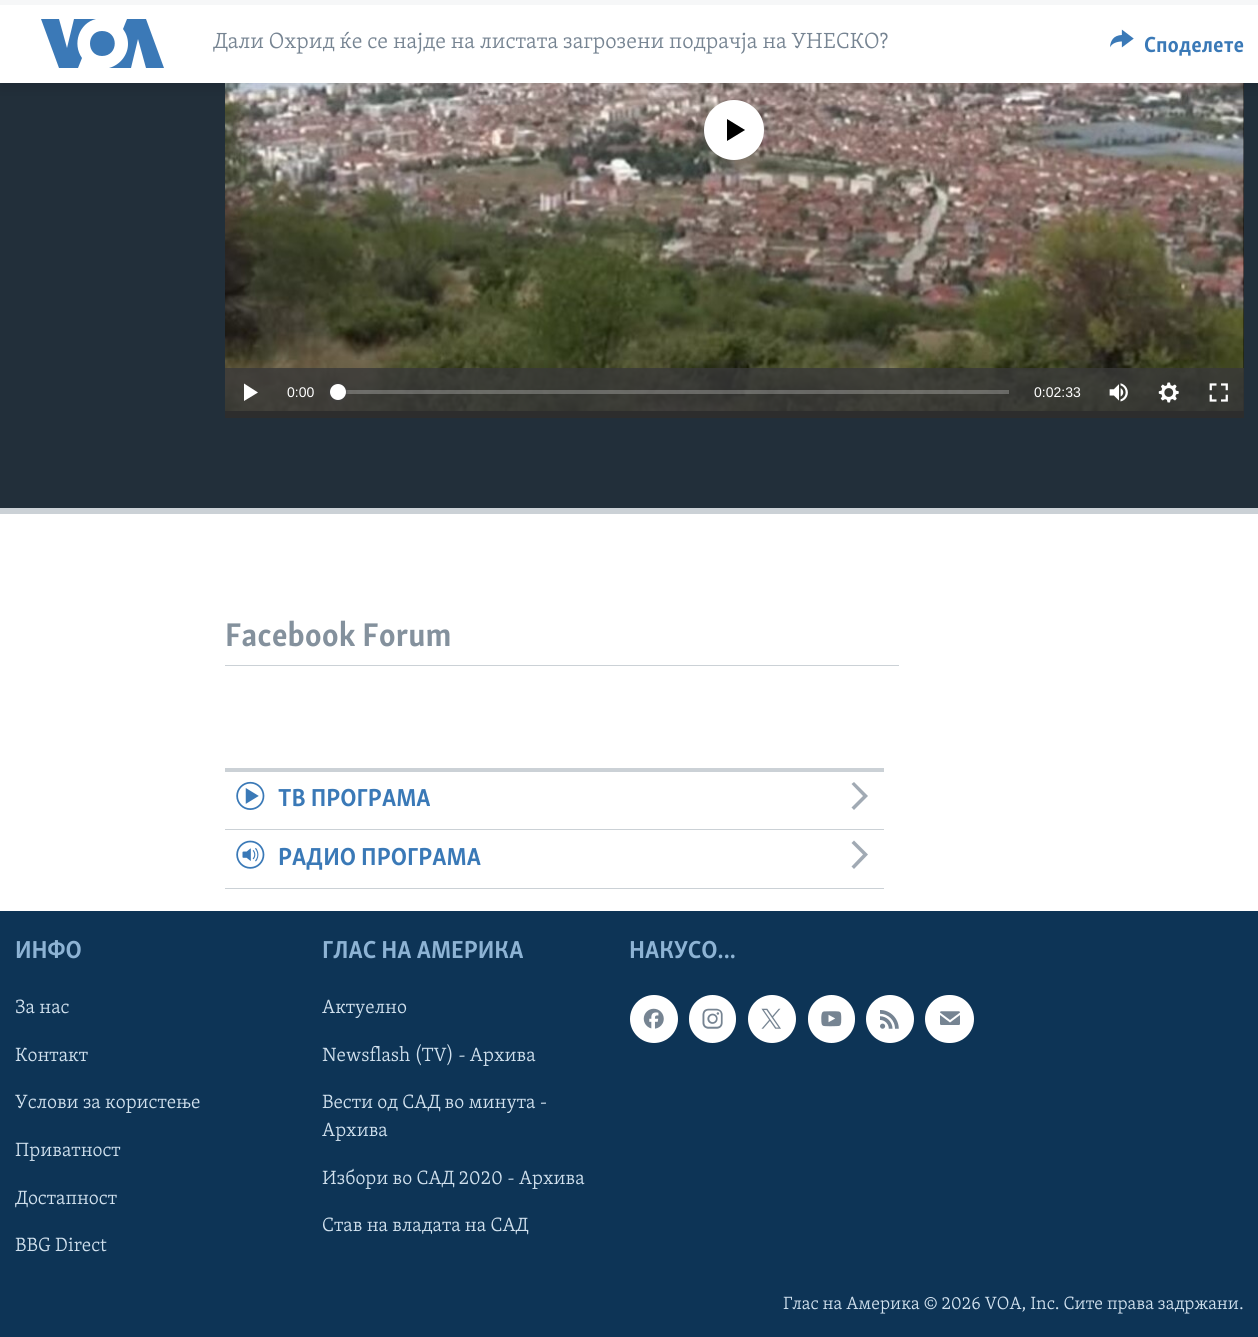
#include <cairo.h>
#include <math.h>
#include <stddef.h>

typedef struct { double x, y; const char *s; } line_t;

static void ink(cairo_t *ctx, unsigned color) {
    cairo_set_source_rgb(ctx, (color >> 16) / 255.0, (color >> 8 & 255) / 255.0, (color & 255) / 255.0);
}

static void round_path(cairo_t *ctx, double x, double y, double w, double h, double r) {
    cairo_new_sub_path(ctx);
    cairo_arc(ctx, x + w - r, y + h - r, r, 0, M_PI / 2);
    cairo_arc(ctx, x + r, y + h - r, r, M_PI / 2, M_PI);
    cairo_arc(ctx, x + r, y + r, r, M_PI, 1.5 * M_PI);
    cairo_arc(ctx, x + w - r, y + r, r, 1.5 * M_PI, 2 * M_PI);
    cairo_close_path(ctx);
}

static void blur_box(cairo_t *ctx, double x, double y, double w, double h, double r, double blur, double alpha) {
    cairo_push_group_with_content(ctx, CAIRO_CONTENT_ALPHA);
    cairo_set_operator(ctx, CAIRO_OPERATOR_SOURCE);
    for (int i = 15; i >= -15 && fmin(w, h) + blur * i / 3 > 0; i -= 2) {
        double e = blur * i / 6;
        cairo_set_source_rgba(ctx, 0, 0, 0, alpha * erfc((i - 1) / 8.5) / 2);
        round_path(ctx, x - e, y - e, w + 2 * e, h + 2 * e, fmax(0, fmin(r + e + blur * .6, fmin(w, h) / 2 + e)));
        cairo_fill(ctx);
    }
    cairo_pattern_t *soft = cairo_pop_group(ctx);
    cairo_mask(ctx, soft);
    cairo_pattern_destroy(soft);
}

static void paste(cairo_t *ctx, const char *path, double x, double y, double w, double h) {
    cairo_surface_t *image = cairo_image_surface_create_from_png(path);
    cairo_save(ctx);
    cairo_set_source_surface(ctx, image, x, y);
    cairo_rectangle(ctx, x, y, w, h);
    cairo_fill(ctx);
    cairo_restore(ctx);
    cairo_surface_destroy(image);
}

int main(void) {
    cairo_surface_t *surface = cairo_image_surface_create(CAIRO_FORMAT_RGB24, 1258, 1337);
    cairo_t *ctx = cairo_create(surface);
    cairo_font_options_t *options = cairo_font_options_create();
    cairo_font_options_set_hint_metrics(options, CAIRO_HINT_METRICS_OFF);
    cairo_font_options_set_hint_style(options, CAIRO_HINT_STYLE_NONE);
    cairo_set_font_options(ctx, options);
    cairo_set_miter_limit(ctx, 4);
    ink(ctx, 0xFFFFFF);
    cairo_paint(ctx);
    ink(ctx, 0x222F3A);
    cairo_rectangle(ctx, 0, 83, 1258, 425);
    cairo_fill(ctx);
    ink(ctx, 0x000000);
    cairo_rectangle(ctx, 225, 83, 1019, 335);
    cairo_fill(ctx);
    paste(ctx, "media/2.png", 225, 83, 1019, 328);
    ink(ctx, 0xFFFFFF);
    cairo_arc(ctx, 734, 130, 30, 0, 2 * M_PI);
    cairo_fill(ctx);
    ink(ctx, 0x000000);
    blur_box(ctx, 0, 6, 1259, 83, 0, 6, 0.1);
    ink(ctx, 0xFFFFFF);
    cairo_rectangle(ctx, 0, 5, 1258, 78);
    cairo_fill(ctx);
    ink(ctx, 0xF6F7F8);
    cairo_rectangle(ctx, 0, 0, 1258, 5);
    cairo_fill(ctx);
    ink(ctx, 0x3B79B7);
    cairo_new_path(ctx);
    cairo_move_to(ctx, 82, 58);
    cairo_line_to(ctx, 78, 68);
    cairo_line_to(ctx, 59, 68);
    cairo_line_to(ctx, 41, 19);
    cairo_line_to(ctx, 59, 19);
    cairo_line_to(ctx, 67, 48);
    cairo_line_to(ctx, 74, 19);
    cairo_line_to(ctx, 96, 19);
    cairo_curve_to(ctx, 79, 23, 72, 44, 82, 58);
    cairo_close_path(ctx);
    cairo_move_to(ctx, 102, 31);
    cairo_curve_to(ctx, 86, 31, 86, 56, 102, 56);
    cairo_curve_to(ctx, 119, 56, 119, 31, 102, 31);
    cairo_close_path(ctx);
    cairo_move_to(ctx, 128, 44);
    cairo_curve_to(ctx, 128, 55, 120, 65, 109, 68);
    cairo_line_to(ctx, 131, 68);
    cairo_line_to(ctx, 138, 39);
    cairo_line_to(ctx, 146, 68);
    cairo_line_to(ctx, 164, 68);
    cairo_line_to(ctx, 146, 19);
    cairo_line_to(ctx, 127, 19);
    cairo_line_to(ctx, 123, 29);
    cairo_curve_to(ctx, 126, 33, 128, 38, 128, 44);
    cairo_close_path(ctx);
    cairo_fill(ctx);
    cairo_save(ctx);
    cairo_rectangle(ctx, 213, 28, 873, 32);
    cairo_clip(ctx);
    cairo_select_font_face(ctx, "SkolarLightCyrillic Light", CAIRO_FONT_SLANT_NORMAL, CAIRO_FONT_WEIGHT_NORMAL);
    cairo_set_font_size(ctx, 22.5);
    ink(ctx, 0x768492);
    cairo_move_to(ctx, 213, 48);
    cairo_show_text(ctx, "Дали Охрид ќе се најде на листата загрозени подрачја на УНЕСКО?");
    cairo_restore(ctx);
    paste(ctx, "media/1.png", 1110, 29, 24, 19);
    cairo_select_font_face(ctx, "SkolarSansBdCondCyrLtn", CAIRO_FONT_SLANT_NORMAL, CAIRO_FONT_WEIGHT_BOLD);
    cairo_set_font_size(ctx, 22.5);
    ink(ctx, 0x3A79B7);
    cairo_move_to(ctx, 1144, 52);
    cairo_show_text(ctx, "Споделете");
    ink(ctx, 0xCBD1D6);
    cairo_rectangle(ctx, 0, 508, 1258, 6);
    cairo_fill(ctx);
    ink(ctx, 0x000000);
    cairo_new_path(ctx);
    cairo_move_to(ctx, 727, 141);
    cairo_line_to(ctx, 745, 130);
    cairo_line_to(ctx, 727, 119);
    cairo_close_path(ctx);
    cairo_fill(ctx);
    cairo_set_source_rgba(ctx, 0.22, 0.22, 0.22, 0.8);
    cairo_rectangle(ctx, 225, 368, 1019, 50);
    cairo_fill(ctx);
    ink(ctx, 0xFFFFFF);
    cairo_new_path(ctx);
    cairo_move_to(ctx, 244, 401);
    cairo_line_to(ctx, 258, 392.5);
    cairo_line_to(ctx, 244, 383.5);
    cairo_close_path(ctx);
    cairo_fill(ctx);
    cairo_select_font_face(ctx, "Liberation Sans", CAIRO_FONT_SLANT_NORMAL, CAIRO_FONT_WEIGHT_NORMAL);
    cairo_set_font_size(ctx, 14);
    cairo_move_to(ctx, 287, 397);
    cairo_show_text(ctx, "0:00");
    cairo_set_source_rgba(ctx, 1, 1, 1, 0.25);
    cairo_rectangle(ctx, 339, 390, 670, 4);
    cairo_fill(ctx);
    ink(ctx, 0x414144);
    blur_box(ctx, 330, 384, 16, 16, 8, 2, 1);
    ink(ctx, 0xFFFFFF);
    cairo_arc(ctx, 338, 392, 8, 0, 2 * M_PI);
    cairo_fill(ctx);
    cairo_move_to(ctx, 1034, 397);
    cairo_show_text(ctx, "0:02:33");
    paste(ctx, "media/3.png", 1109, 383, 19, 19);
    paste(ctx, "media/4.png", 1158, 382, 21, 21);
    paste(ctx, "media/5.png", 1209, 383, 19, 19);
    ink(ctx, 0xCBD1D6);
    cairo_rectangle(ctx, 225, 665, 674, 1);
    cairo_fill(ctx);
    cairo_select_font_face(ctx, "SkolarSansBdCondCyrLtn", CAIRO_FONT_SLANT_NORMAL, CAIRO_FONT_WEIGHT_BOLD);
    cairo_set_font_size(ctx, 33.75);
    ink(ctx, 0x84919D);
    cairo_move_to(ctx, 225, 646);
    cairo_show_text(ctx, "Facebook Forum");
    ink(ctx, 0xCBD1D6);
    cairo_rectangle(ctx, 225, 768, 659, 4);
    cairo_fill(ctx);
    cairo_rectangle(ctx, 225, 829, 659, 1);
    cairo_fill(ctx);
    paste(ctx, "media/6.png", 236, 781, 29, 29);
    cairo_set_font_size(ctx, 25.25);
    ink(ctx, 0x3A79B7);
    cairo_move_to(ctx, 278, 806);
    cairo_show_text(ctx, "ТВ ПРОГРАМА");
    ink(ctx, 0xA1AAB4);
    cairo_new_path(ctx);
    cairo_move_to(ctx, 854, 810);
    cairo_line_to(ctx, 868, 796);
    cairo_line_to(ctx, 854, 782);
    cairo_line_to(ctx, 851.5, 784);
    cairo_line_to(ctx, 863, 796);
    cairo_line_to(ctx, 851.5, 807.5);
    cairo_close_path(ctx);
    cairo_fill(ctx);
    ink(ctx, 0xCBD1D6);
    cairo_rectangle(ctx, 225, 888, 659, 1);
    cairo_fill(ctx);
    paste(ctx, "media/7.png", 236, 840, 29, 29);
    ink(ctx, 0x3A79B7);
    cairo_move_to(ctx, 278, 865);
    cairo_show_text(ctx, "РАДИО ПРОГРАМА");
    ink(ctx, 0xA1AAB4);
    cairo_new_path(ctx);
    cairo_move_to(ctx, 854, 869);
    cairo_line_to(ctx, 868, 854.5);
    cairo_line_to(ctx, 854, 840.5);
    cairo_line_to(ctx, 851.5, 843);
    cairo_line_to(ctx, 863, 854.5);
    cairo_line_to(ctx, 851.5, 866.5);
    cairo_close_path(ctx);
    cairo_fill(ctx);
    ink(ctx, 0x0D3456);
    cairo_rectangle(ctx, 0, 911, 1258, 426);
    cairo_fill(ctx);
    ink(ctx, 0x8DB3D4);
    cairo_move_to(ctx, 15, 958);
    cairo_show_text(ctx, "ИНФО");
    cairo_select_font_face(ctx, "SkolarLightCyrillic Light", CAIRO_FONT_SLANT_NORMAL, CAIRO_FONT_WEIGHT_NORMAL);
    cairo_set_font_size(ctx, 19.75);
    ink(ctx, 0xD1E1EE);
    {
        static const line_t items[] = {
            {15, 1013, "За нас"},
            {15, 1061, "Контакт"},
            {15, 1108, "Услови за користење"},
            {15, 1156, "Приватност"},
            {15, 1204, "Достапност"},
            {15, 1251, "BBG Direct"},
        };
        for (size_t i = 0; i < sizeof items / sizeof *items; i++) {
            cairo_move_to(ctx, items[i].x, items[i].y);
            cairo_show_text(ctx, items[i].s);
        }
    }
    cairo_select_font_face(ctx, "SkolarSansBdCondCyrLtn", CAIRO_FONT_SLANT_NORMAL, CAIRO_FONT_WEIGHT_BOLD);
    cairo_set_font_size(ctx, 25.25);
    ink(ctx, 0x8DB3D4);
    cairo_move_to(ctx, 322, 958);
    cairo_show_text(ctx, "ГЛАС НА АМЕРИКА");
    cairo_select_font_face(ctx, "SkolarLightCyrillic Light", CAIRO_FONT_SLANT_NORMAL, CAIRO_FONT_WEIGHT_NORMAL);
    cairo_set_font_size(ctx, 19.75);
    ink(ctx, 0xD1E1EE);
    {
        static const line_t items[] = {
            {322, 1013, "Актуелно"},
            {322, 1061, "Newsflash (TV) - Архива"},
            {322, 1108, "Вести од САД во минута -"},
            {322, 1136, "Архива"},
            {322, 1184, "Избори во САД 2020 - Архива"},
            {322, 1231, "Став на владата на САД"},
        };
        for (size_t i = 0; i < sizeof items / sizeof *items; i++) {
            cairo_move_to(ctx, items[i].x, items[i].y);
            cairo_show_text(ctx, items[i].s);
        }
    }
    cairo_select_font_face(ctx, "SkolarSansBdCondCyrLtn", CAIRO_FONT_SLANT_NORMAL, CAIRO_FONT_WEIGHT_BOLD);
    cairo_set_font_size(ctx, 25.25);
    ink(ctx, 0x8DB3D4);
    cairo_move_to(ctx, 629, 958);
    cairo_show_text(ctx, "НАКУСО...");
    ink(ctx, 0xFFFFFF);
    cairo_new_path(ctx);
    cairo_arc(ctx, 654, 1019, 24, 0, 2 * M_PI);
    cairo_fill(ctx);
    paste(ctx, "media/8.png", 643, 1008, 21, 21);
    round_path(ctx, 689, 995, 47, 48, 23.5);
    cairo_fill(ctx);
    paste(ctx, "media/9.png", 702, 1008, 21, 21);
    cairo_arc(ctx, 772, 1019, 24, 0, 2 * M_PI);
    cairo_fill(ctx);
    paste(ctx, "media/10.png", 761, 1008, 20, 21);
    round_path(ctx, 808, 995, 47, 48, 23.5);
    cairo_fill(ctx);
    paste(ctx, "media/11.png", 821, 1011, 21, 16);
    cairo_arc(ctx, 890, 1019, 24, 0, 2 * M_PI);
    cairo_fill(ctx);
    paste(ctx, "media/12.png", 880, 1010, 19, 19);
    round_path(ctx, 925, 995, 49, 48, 24);
    cairo_fill(ctx);
    paste(ctx, "media/13.png", 940, 1011, 20, 14);
    cairo_select_font_face(ctx, "SkolarLightCyrillic Light", CAIRO_FONT_SLANT_NORMAL, CAIRO_FONT_WEIGHT_NORMAL);
    cairo_set_font_size(ctx, 18.25);
    ink(ctx, 0xD1E1EE);
    cairo_move_to(ctx, 783, 1309);
    cairo_show_text(ctx, "Глас на Америка © 2026 VOA, Inc. Сите права задржани.");
    cairo_surface_write_to_png(surface, "image.png");
    cairo_font_options_destroy(options);
    cairo_destroy(ctx);
    cairo_surface_destroy(surface);
    return 0;
}
